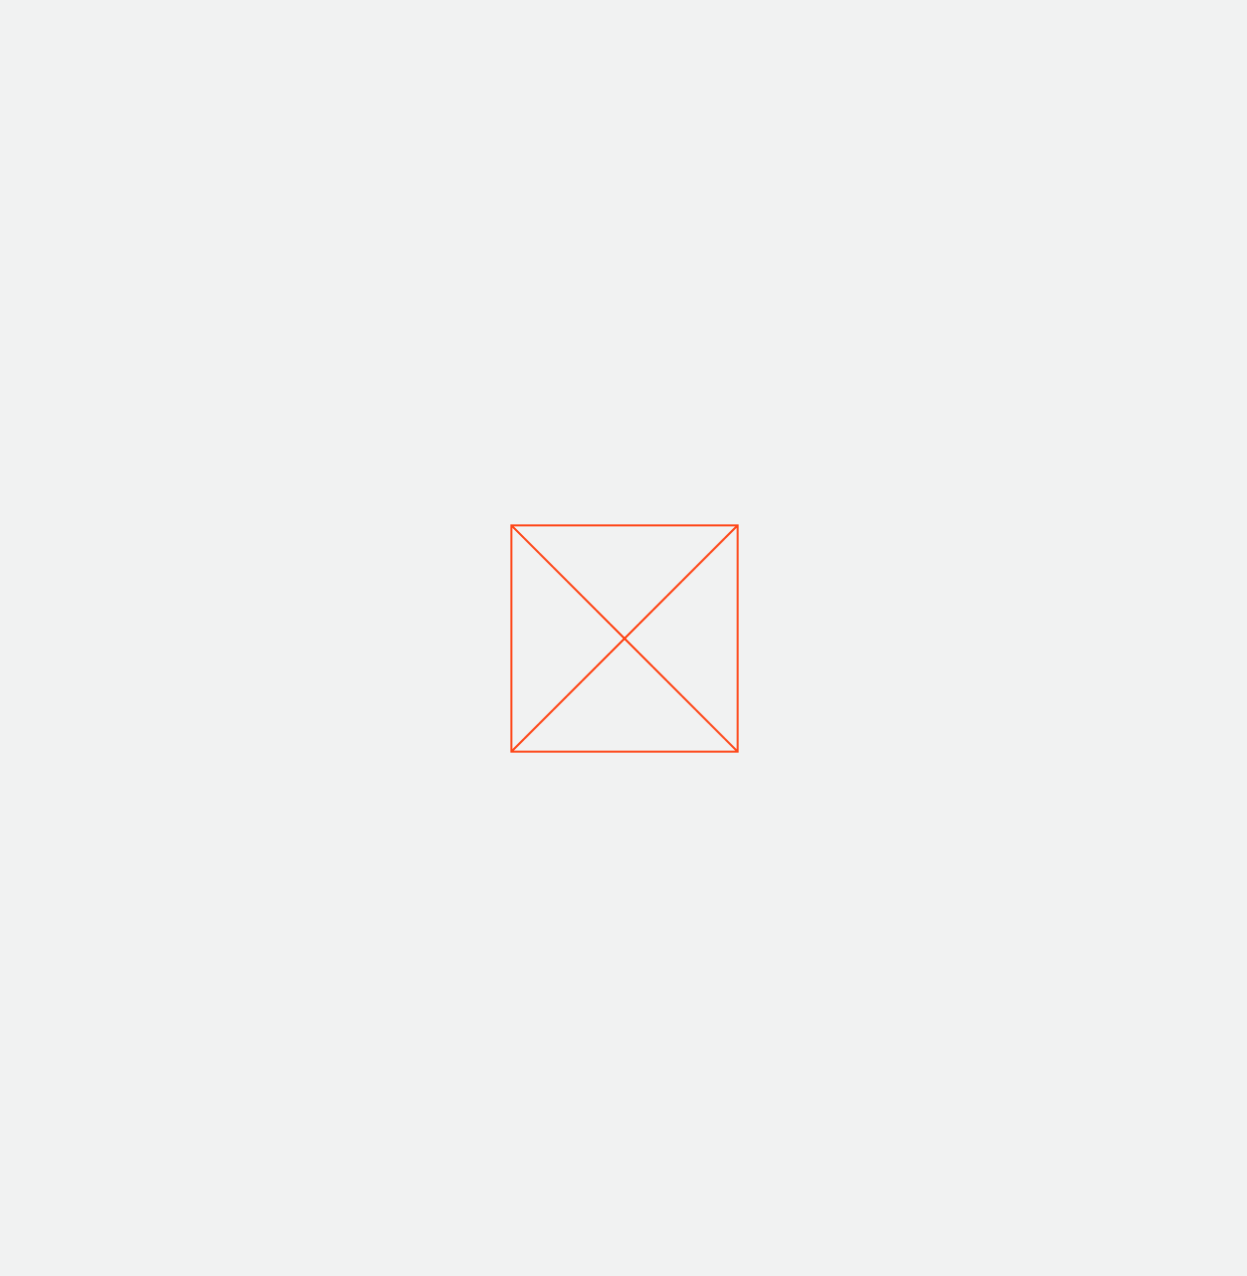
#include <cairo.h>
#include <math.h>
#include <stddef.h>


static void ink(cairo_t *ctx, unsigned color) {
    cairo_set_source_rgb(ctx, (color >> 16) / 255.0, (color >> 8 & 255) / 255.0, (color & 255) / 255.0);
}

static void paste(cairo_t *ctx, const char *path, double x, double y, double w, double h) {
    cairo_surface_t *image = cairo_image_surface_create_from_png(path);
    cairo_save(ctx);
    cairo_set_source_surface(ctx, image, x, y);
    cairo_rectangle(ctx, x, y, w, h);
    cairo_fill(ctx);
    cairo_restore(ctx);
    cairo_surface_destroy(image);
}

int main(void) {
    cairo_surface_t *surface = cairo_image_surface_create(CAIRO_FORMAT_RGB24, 1247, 1276);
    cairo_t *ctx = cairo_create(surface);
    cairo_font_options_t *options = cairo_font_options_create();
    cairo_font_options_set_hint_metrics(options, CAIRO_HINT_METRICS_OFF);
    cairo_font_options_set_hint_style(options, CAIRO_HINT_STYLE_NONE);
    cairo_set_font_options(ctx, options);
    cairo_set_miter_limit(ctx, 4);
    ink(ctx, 0xF1F2F2);
    cairo_paint(ctx);
    paste(ctx, "media/1.png", 510, 524, 229, 229);
    cairo_surface_write_to_png(surface, "image.png");
    cairo_font_options_destroy(options);
    cairo_destroy(ctx);
    cairo_surface_destroy(surface);
    return 0;
}
